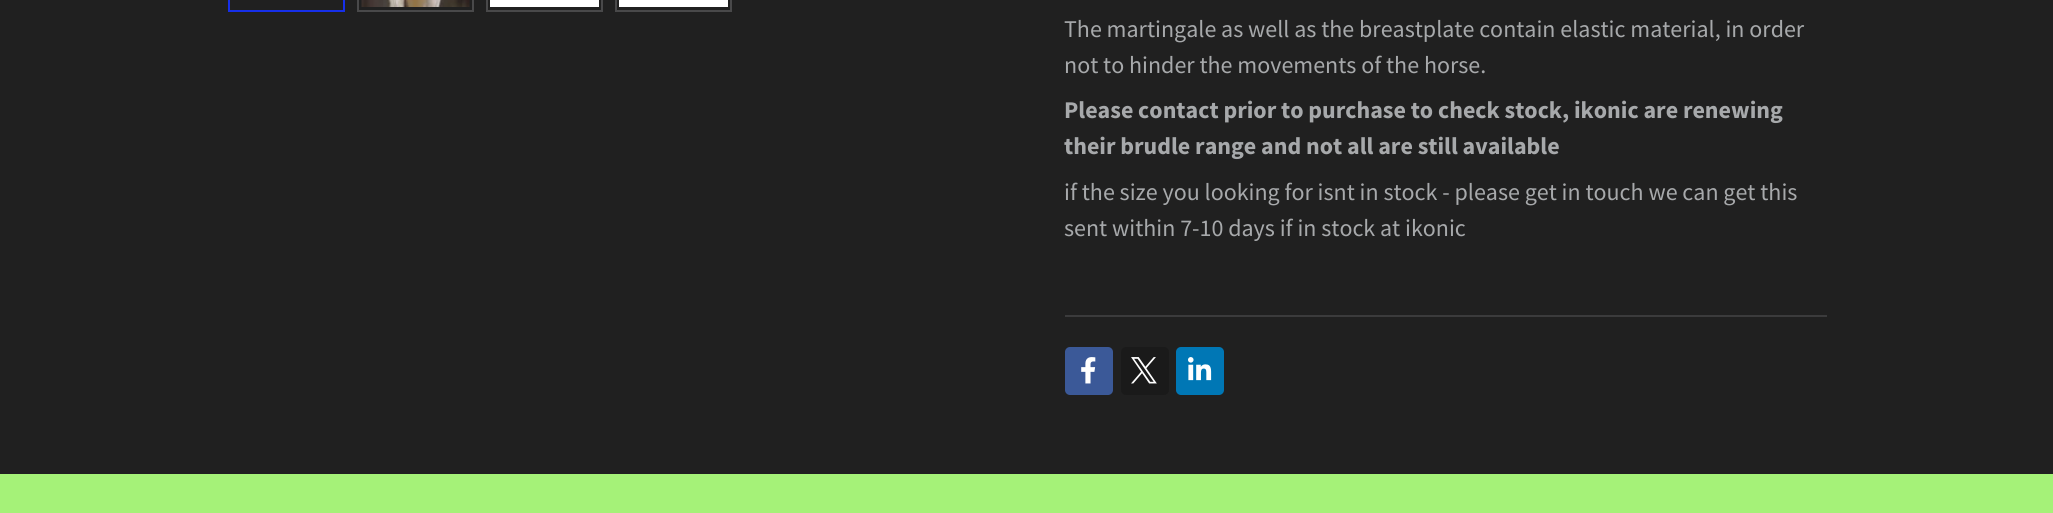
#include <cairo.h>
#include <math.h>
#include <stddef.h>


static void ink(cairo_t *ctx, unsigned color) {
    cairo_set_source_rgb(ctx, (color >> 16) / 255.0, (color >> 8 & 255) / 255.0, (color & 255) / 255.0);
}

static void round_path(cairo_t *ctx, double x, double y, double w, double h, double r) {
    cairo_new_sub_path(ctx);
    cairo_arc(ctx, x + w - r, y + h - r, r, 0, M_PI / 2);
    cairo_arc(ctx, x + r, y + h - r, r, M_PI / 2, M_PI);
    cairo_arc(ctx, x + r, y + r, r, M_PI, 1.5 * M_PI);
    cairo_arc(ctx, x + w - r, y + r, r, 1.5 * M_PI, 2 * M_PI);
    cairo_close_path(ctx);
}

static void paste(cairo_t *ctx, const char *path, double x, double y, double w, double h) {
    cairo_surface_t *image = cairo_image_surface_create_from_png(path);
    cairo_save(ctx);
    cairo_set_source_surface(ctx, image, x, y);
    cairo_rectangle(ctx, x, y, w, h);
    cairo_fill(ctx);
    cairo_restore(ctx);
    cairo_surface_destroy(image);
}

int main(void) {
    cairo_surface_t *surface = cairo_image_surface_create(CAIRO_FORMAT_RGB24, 2053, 513);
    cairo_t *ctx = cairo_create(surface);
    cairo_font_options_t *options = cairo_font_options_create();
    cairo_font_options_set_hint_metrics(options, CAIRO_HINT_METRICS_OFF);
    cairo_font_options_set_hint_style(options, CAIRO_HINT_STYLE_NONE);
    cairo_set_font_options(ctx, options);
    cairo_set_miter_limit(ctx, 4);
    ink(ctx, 0x202020);
    cairo_paint(ctx);
    cairo_rectangle(ctx, 229, -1, 115, 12);
    ink(ctx, 0x162FEA);
    cairo_stroke(ctx);
    cairo_rectangle(ctx, 358, -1, 115, 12);
    ink(ctx, 0x49494A);
    cairo_stroke(ctx);
    paste(ctx, "media/1.png", 361, 0, 109, 7);
    cairo_rectangle(ctx, 487, -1, 115, 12);
    cairo_stroke(ctx);
    ink(ctx, 0xFFFFFF);
    cairo_rectangle(ctx, 490, 0, 109, 7);
    cairo_fill(ctx);
    cairo_rectangle(ctx, 616, -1, 115, 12);
    ink(ctx, 0x49494A);
    cairo_stroke(ctx);
    ink(ctx, 0xFFFFFF);
    cairo_rectangle(ctx, 619, 0, 109, 7);
    cairo_fill(ctx);
    cairo_select_font_face(ctx, "Source Sans Pro", CAIRO_FONT_SLANT_NORMAL, CAIRO_FONT_WEIGHT_NORMAL);
    cairo_set_font_size(ctx, 24);
    ink(ctx, 0xA7A9AB);
    cairo_move_to(ctx, 1064, 37);
    cairo_show_text(ctx, "The martingale as well as the breastplate contain elastic material, in order");
    cairo_move_to(ctx, 1064, 73);
    cairo_show_text(ctx, "not to hinder the movements of the horse.");
    cairo_select_font_face(ctx, "Source Sans Pro", CAIRO_FONT_SLANT_NORMAL, CAIRO_FONT_WEIGHT_BOLD);
    cairo_move_to(ctx, 1064, 118);
    cairo_show_text(ctx, "Please contact prior to purchase to check stock, ikonic are renewing");
    cairo_move_to(ctx, 1064, 154);
    cairo_show_text(ctx, "their brudle range and not all are still available");
    cairo_select_font_face(ctx, "Source Sans Pro", CAIRO_FONT_SLANT_NORMAL, CAIRO_FONT_WEIGHT_NORMAL);
    cairo_move_to(ctx, 1064, 200);
    cairo_show_text(ctx, "if the size you looking for isnt in stock - please get in touch we can get this");
    cairo_move_to(ctx, 1064, 236);
    cairo_show_text(ctx, "sent within 7-10 days if in stock at ikonic");
    ink(ctx, 0x3B3B3C);
    cairo_rectangle(ctx, 1065, 315, 762, 2);
    cairo_fill(ctx);
    ink(ctx, 0x3B5998);
    round_path(ctx, 1065, 347, 48, 48, 5);
    cairo_fill(ctx);
    paste(ctx, "media/2.png", 1081, 357, 15, 27);
    ink(ctx, 0x1A1A1A);
    round_path(ctx, 1121, 347, 48, 48, 5);
    cairo_fill(ctx);
    paste(ctx, "media/3.png", 1131, 357, 26, 27);
    ink(ctx, 0x0077B5);
    round_path(ctx, 1176, 347, 48, 48, 5);
    cairo_fill(ctx);
    paste(ctx, "media/4.png", 1188, 357, 24, 24);
    ink(ctx, 0xA5F278);
    cairo_rectangle(ctx, 0, 474, 2053, 39);
    cairo_fill(ctx);
    cairo_surface_write_to_png(surface, "image.png");
    cairo_font_options_destroy(options);
    cairo_destroy(ctx);
    cairo_surface_destroy(surface);
    return 0;
}
